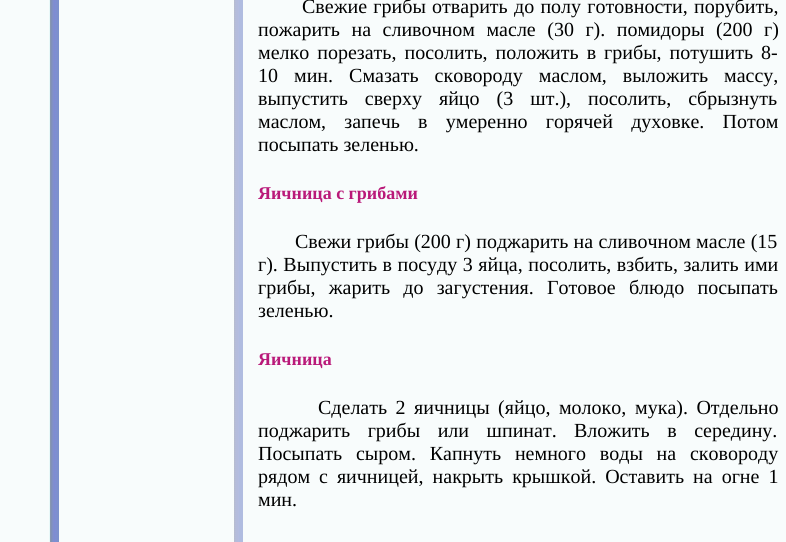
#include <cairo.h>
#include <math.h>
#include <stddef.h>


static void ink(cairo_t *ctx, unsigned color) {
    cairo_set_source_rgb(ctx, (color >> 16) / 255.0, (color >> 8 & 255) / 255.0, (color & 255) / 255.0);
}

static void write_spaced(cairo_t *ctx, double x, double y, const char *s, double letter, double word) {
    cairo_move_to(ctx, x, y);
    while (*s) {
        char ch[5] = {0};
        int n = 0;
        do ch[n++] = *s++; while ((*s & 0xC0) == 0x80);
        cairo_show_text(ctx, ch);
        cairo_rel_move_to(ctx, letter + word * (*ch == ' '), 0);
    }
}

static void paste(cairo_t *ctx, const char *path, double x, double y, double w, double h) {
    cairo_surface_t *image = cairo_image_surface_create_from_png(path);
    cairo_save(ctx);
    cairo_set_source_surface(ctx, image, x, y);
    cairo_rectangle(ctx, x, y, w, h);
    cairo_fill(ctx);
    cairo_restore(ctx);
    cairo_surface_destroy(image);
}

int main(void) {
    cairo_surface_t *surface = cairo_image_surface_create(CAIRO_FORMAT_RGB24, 786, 542);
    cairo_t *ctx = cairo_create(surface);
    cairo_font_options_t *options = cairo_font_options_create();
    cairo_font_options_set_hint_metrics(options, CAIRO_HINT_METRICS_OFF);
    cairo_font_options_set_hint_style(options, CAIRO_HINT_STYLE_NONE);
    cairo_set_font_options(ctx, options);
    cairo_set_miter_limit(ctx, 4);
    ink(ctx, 0xFFFFFF);
    cairo_paint(ctx);
    paste(ctx, "media/1.png", 0, 0, 786, 542);
    cairo_select_font_face(ctx, "Liberation Serif", CAIRO_FONT_SLANT_NORMAL, CAIRO_FONT_WEIGHT_NORMAL);
    cairo_set_font_size(ctx, 20);
    ink(ctx, 0x000000);
    write_spaced(ctx, 302, 13, "Свежие грибы отварить до полу готовности, порубить,", 0, 1.25);
    write_spaced(ctx, 258, 36, "пожарить на сливочном масле (30 г). помидоры (200 г)", 0, 6.5);
    write_spaced(ctx, 258, 59, "мелко порезать, посолить, положить в грибы, потушить 8-", 0, 3);
    write_spaced(ctx, 258, 82, "10 мин. Смазать сковороду маслом, выложить массу,", 0, 11);
    write_spaced(ctx, 258, 105, "выпустить сверху яйцо (3 шт.), посолить, сбрызнуть", 0, 12);
    write_spaced(ctx, 258, 128, "маслом, запечь в умеренно горячей духовке. Потом", 0, 13.25);
    cairo_move_to(ctx, 258, 151);
    cairo_show_text(ctx, "посыпать зеленью.");
    cairo_select_font_face(ctx, "Liberation Serif", CAIRO_FONT_SLANT_NORMAL, CAIRO_FONT_WEIGHT_BOLD);
    cairo_set_font_size(ctx, 18);
    ink(ctx, 0xB91979);
    cairo_move_to(ctx, 258, 199);
    cairo_show_text(ctx, "Яичница с грибами");
    cairo_select_font_face(ctx, "Liberation Serif", CAIRO_FONT_SLANT_NORMAL, CAIRO_FONT_WEIGHT_NORMAL);
    cairo_set_font_size(ctx, 20);
    ink(ctx, 0x000000);
    write_spaced(ctx, 295, 248, "Свежи грибы (200 г) поджарить на сливочном масле (15", 0, 0.25);
    write_spaced(ctx, 258, 271, "г). Выпустить в посуду 3 яйца, посолить, взбить, залить ими", 0, 0.5);
    write_spaced(ctx, 258, 294, "грибы, жарить до загустения. Готовое блюдо посыпать", 0, 8.25);
    cairo_move_to(ctx, 258, 317);
    cairo_show_text(ctx, "зеленью.");
    cairo_select_font_face(ctx, "Liberation Serif", CAIRO_FONT_SLANT_NORMAL, CAIRO_FONT_WEIGHT_BOLD);
    cairo_set_font_size(ctx, 18);
    ink(ctx, 0xB91979);
    cairo_move_to(ctx, 258, 365);
    cairo_show_text(ctx, "Яичница");
    cairo_select_font_face(ctx, "Liberation Serif", CAIRO_FONT_SLANT_NORMAL, CAIRO_FONT_WEIGHT_NORMAL);
    cairo_set_font_size(ctx, 20);
    ink(ctx, 0x000000);
    write_spaced(ctx, 318, 414, "Сделать 2 яичницы (яйцо, молоко,", 0, 3.5);
    write_spaced(ctx, 635, 414, "мука). Отдельно", 0, 3.5);
    write_spaced(ctx, 258, 437, "поджарить грибы или шпинат.", 0, 12.5);
    write_spaced(ctx, 574, 437, "Вложить в середину.", 0, 12.5);
    write_spaced(ctx, 258, 460, "Посыпать сыром. Капнуть немного воды на сковороду", 0, 8.75);
    write_spaced(ctx, 258, 483, "рядом с яичницей, накрыть крышкой. Оставить на огне 1", 0, 4);
    cairo_move_to(ctx, 258, 506);
    cairo_show_text(ctx, "мин.");
    cairo_surface_write_to_png(surface, "image.png");
    cairo_font_options_destroy(options);
    cairo_destroy(ctx);
    cairo_surface_destroy(surface);
    return 0;
}
